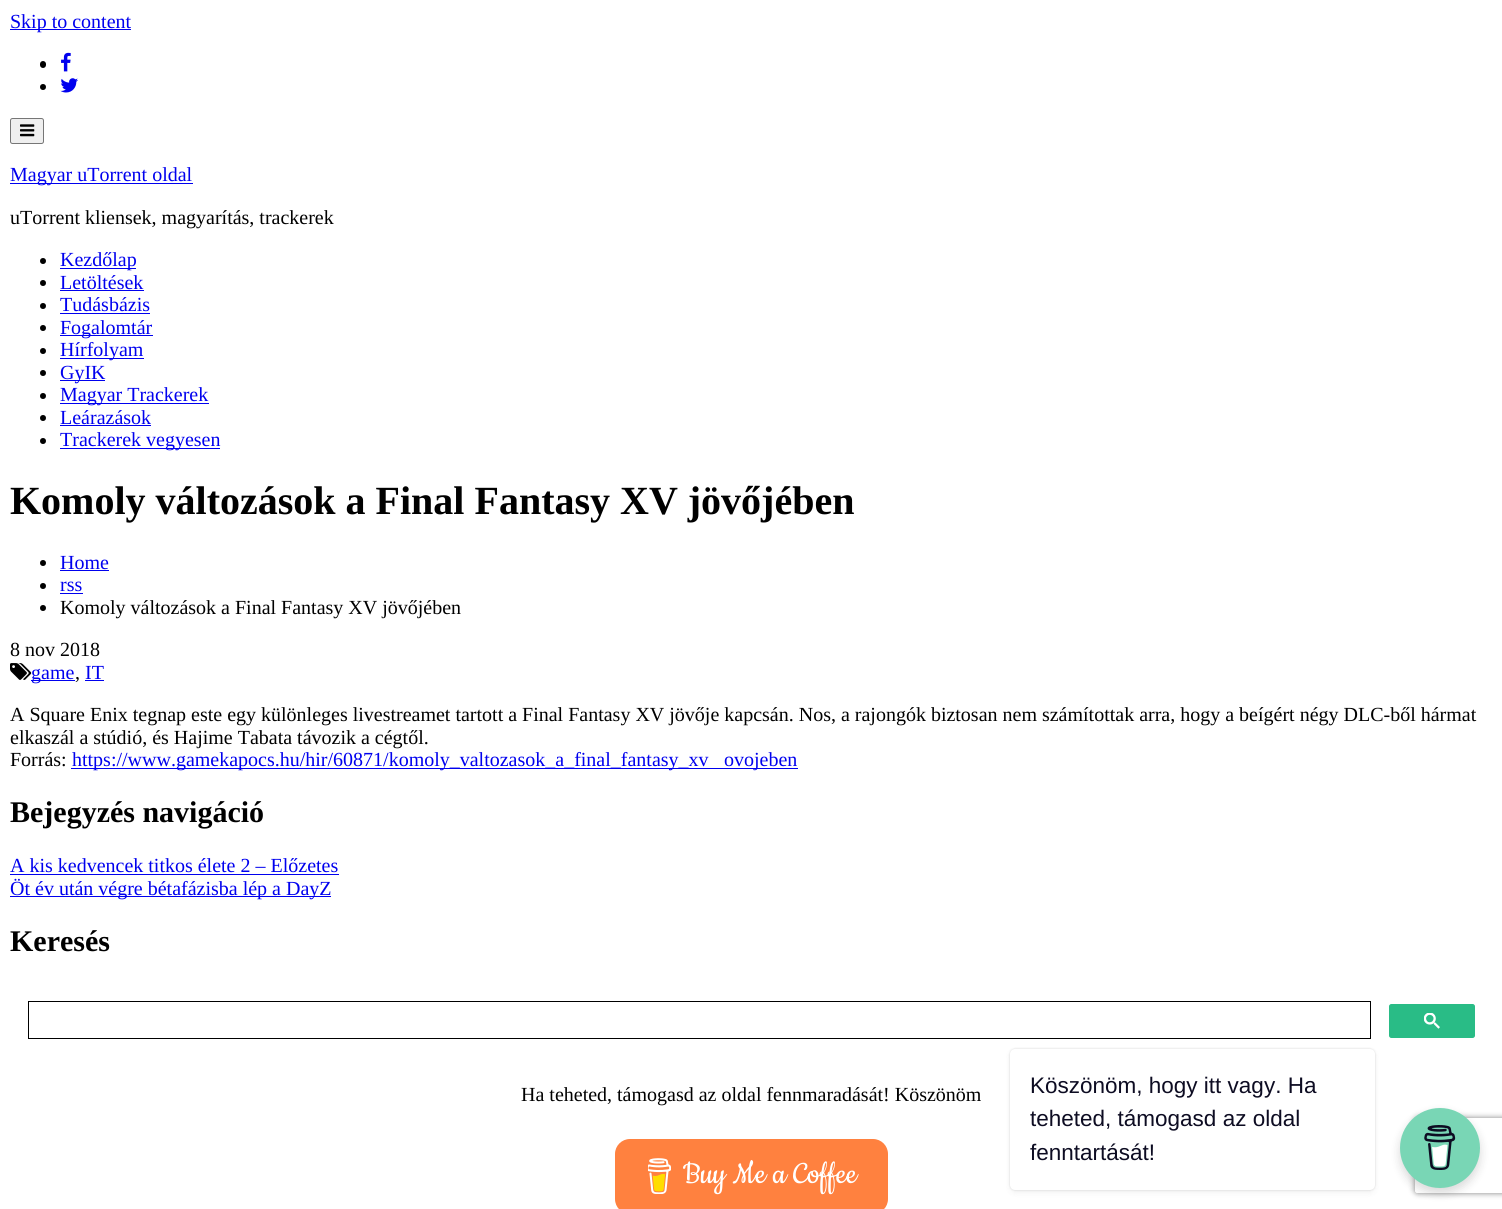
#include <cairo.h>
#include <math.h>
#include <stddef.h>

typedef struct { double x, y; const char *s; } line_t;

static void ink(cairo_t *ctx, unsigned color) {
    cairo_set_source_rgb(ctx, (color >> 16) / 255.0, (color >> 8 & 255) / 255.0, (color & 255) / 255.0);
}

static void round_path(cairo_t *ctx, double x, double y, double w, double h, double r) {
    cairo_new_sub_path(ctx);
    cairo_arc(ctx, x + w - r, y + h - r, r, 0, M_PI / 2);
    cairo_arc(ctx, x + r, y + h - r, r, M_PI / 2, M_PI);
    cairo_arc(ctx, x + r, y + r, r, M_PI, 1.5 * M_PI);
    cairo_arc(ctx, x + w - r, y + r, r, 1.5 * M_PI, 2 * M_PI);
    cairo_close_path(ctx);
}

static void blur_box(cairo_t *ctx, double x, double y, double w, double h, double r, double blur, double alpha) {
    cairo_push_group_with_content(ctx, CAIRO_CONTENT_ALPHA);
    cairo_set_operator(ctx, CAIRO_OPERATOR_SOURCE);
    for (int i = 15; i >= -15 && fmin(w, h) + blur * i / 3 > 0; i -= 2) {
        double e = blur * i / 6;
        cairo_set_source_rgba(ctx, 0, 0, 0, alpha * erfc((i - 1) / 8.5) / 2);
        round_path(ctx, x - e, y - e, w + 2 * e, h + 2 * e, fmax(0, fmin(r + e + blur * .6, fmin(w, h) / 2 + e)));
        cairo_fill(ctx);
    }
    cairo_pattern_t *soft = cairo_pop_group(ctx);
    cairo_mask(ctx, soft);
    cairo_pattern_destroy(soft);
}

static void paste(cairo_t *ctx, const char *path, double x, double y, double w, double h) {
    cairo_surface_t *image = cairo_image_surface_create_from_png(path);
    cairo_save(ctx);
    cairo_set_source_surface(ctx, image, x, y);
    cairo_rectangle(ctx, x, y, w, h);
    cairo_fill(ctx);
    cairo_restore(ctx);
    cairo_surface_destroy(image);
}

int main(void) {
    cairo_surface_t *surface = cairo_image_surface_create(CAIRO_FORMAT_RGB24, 1502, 1209);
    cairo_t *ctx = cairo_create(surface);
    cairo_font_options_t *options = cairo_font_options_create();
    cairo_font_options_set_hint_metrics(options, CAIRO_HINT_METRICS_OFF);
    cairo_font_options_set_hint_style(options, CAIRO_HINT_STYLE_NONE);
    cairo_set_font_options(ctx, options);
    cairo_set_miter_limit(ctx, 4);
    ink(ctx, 0xFFFFFF);
    cairo_paint(ctx);
    ink(ctx, 0x0000EE);
    cairo_rectangle(ctx, 10, 29, 121, 1);
    cairo_fill(ctx);
    cairo_select_font_face(ctx, "Liberation Serif", CAIRO_FONT_SLANT_NORMAL, CAIRO_FONT_WEIGHT_NORMAL);
    cairo_set_font_size(ctx, 20);
    cairo_move_to(ctx, 10, 28);
    cairo_show_text(ctx, "Skip to content");
    ink(ctx, 0x000000);
    round_path(ctx, 40, 61, 6, 7, 3);
    cairo_fill(ctx);
    paste(ctx, "media/1.png", 61, 52, 10, 20);
    cairo_arc(ctx, 43, 87, 3, 0, 2 * M_PI);
    cairo_fill(ctx);
    paste(ctx, "media/2.png", 60, 78, 18, 15);
    ink(ctx, 0xEFEFEF);
    round_path(ctx, 10.5, 118.5, 33, 25, 2);
    cairo_fill_preserve(ctx);
    ink(ctx, 0x767676);
    cairo_set_line_width(ctx, 1);
    cairo_stroke(ctx);
    paste(ctx, "media/3.png", 20, 124, 15, 13);
    ink(ctx, 0x0000EE);
    cairo_rectangle(ctx, 10, 183, 183, 1);
    cairo_fill(ctx);
    cairo_move_to(ctx, 10, 181);
    cairo_show_text(ctx, "Magyar uTorrent oldal");
    ink(ctx, 0x000000);
    cairo_move_to(ctx, 10, 224);
    cairo_show_text(ctx, "uTorrent kliensek, magyarítás, trackerek");
    cairo_new_path(ctx);
    cairo_arc(ctx, 43, 261, 3, 0, 2 * M_PI);
    cairo_fill(ctx);
    ink(ctx, 0x0000EE);
    cairo_rectangle(ctx, 60, 268, 76, 1);
    cairo_fill(ctx);
    cairo_move_to(ctx, 60, 266);
    cairo_show_text(ctx, "Kezdőlap");
    ink(ctx, 0x000000);
    cairo_new_path(ctx);
    cairo_arc(ctx, 43, 283, 3, 0, 2 * M_PI);
    cairo_fill(ctx);
    ink(ctx, 0x0000EE);
    cairo_move_to(ctx, 60, 289);
    cairo_show_text(ctx, "Letöltések");
    cairo_rectangle(ctx, 60, 290, 84, 1);
    cairo_fill(ctx);
    ink(ctx, 0x000000);
    cairo_arc(ctx, 43, 306, 3, 0, 2 * M_PI);
    cairo_fill(ctx);
    ink(ctx, 0x0000EE);
    cairo_move_to(ctx, 60, 311);
    cairo_show_text(ctx, "Tudásbázis");
    cairo_rectangle(ctx, 60, 313, 90, 1);
    cairo_fill(ctx);
    ink(ctx, 0x000000);
    cairo_arc(ctx, 43, 328, 3, 0, 2 * M_PI);
    cairo_fill(ctx);
    ink(ctx, 0x0000EE);
    cairo_rectangle(ctx, 60, 335, 93, 1);
    cairo_fill(ctx);
    cairo_move_to(ctx, 60, 334);
    cairo_show_text(ctx, "Fogalomtár");
    ink(ctx, 0x000000);
    cairo_new_path(ctx);
    cairo_arc(ctx, 43, 351, 3, 0, 2 * M_PI);
    cairo_fill(ctx);
    ink(ctx, 0x0000EE);
    cairo_rectangle(ctx, 60, 358, 84, 1);
    cairo_fill(ctx);
    cairo_move_to(ctx, 60, 356);
    cairo_show_text(ctx, "Hírfolyam");
    ink(ctx, 0x000000);
    cairo_new_path(ctx);
    cairo_arc(ctx, 43, 373, 3, 0, 2 * M_PI);
    cairo_fill(ctx);
    ink(ctx, 0x0000EE);
    cairo_rectangle(ctx, 60, 380, 45, 1);
    cairo_fill(ctx);
    cairo_move_to(ctx, 60, 379);
    cairo_show_text(ctx, "GyIK");
    ink(ctx, 0x000000);
    cairo_new_path(ctx);
    cairo_arc(ctx, 43, 396, 3, 0, 2 * M_PI);
    cairo_fill(ctx);
    ink(ctx, 0x0000EE);
    cairo_rectangle(ctx, 60, 403, 149, 1);
    cairo_fill(ctx);
    cairo_move_to(ctx, 60, 401);
    cairo_show_text(ctx, "Magyar Trackerek");
    ink(ctx, 0x000000);
    cairo_new_path(ctx);
    cairo_arc(ctx, 43, 418, 3, 0, 2 * M_PI);
    cairo_fill(ctx);
    ink(ctx, 0x0000EE);
    cairo_move_to(ctx, 60, 424);
    cairo_show_text(ctx, "Leárazások");
    cairo_rectangle(ctx, 60, 425, 91, 1);
    cairo_fill(ctx);
    ink(ctx, 0x000000);
    cairo_arc(ctx, 43, 441, 3, 0, 2 * M_PI);
    cairo_fill(ctx);
    ink(ctx, 0x0000EE);
    cairo_rectangle(ctx, 60, 448, 160, 1);
    cairo_fill(ctx);
    cairo_move_to(ctx, 60, 446);
    cairo_show_text(ctx, "Trackerek vegyesen");
    cairo_select_font_face(ctx, "Liberation Serif", CAIRO_FONT_SLANT_NORMAL, CAIRO_FONT_WEIGHT_BOLD);
    cairo_set_font_size(ctx, 40);
    ink(ctx, 0x000000);
    cairo_move_to(ctx, 10, 514);
    cairo_show_text(ctx, "Komoly változások a Final Fantasy XV jövőjében");
    cairo_new_path(ctx);
    cairo_arc(ctx, 43, 563, 3, 0, 2 * M_PI);
    cairo_fill(ctx);
    cairo_select_font_face(ctx, "Liberation Serif", CAIRO_FONT_SLANT_NORMAL, CAIRO_FONT_WEIGHT_NORMAL);
    cairo_set_font_size(ctx, 20);
    ink(ctx, 0x0000EE);
    cairo_move_to(ctx, 60, 569);
    cairo_show_text(ctx, "Home");
    cairo_rectangle(ctx, 60, 570, 49, 1);
    cairo_fill(ctx);
    ink(ctx, 0x000000);
    cairo_arc(ctx, 43, 586, 3, 0, 2 * M_PI);
    cairo_fill(ctx);
    ink(ctx, 0x0000EE);
    cairo_move_to(ctx, 60, 591);
    cairo_show_text(ctx, "rss");
    cairo_rectangle(ctx, 60, 593, 23, 1);
    cairo_fill(ctx);
    ink(ctx, 0x000000);
    cairo_arc(ctx, 43, 608, 3, 0, 2 * M_PI);
    cairo_fill(ctx);
    cairo_move_to(ctx, 60, 614);
    cairo_show_text(ctx, "Komoly változások a Final Fantasy XV jövőjében");
    cairo_move_to(ctx, 10, 656);
    cairo_show_text(ctx, "8 nov 2018");
    paste(ctx, "media/4.png", 10, 663, 22, 17);
    ink(ctx, 0x0000EE);
    cairo_rectangle(ctx, 31, 680, 44, 1);
    cairo_fill(ctx);
    cairo_move_to(ctx, 31, 679);
    cairo_show_text(ctx, "game");
    ink(ctx, 0x000000);
    cairo_move_to(ctx, 75, 679);
    cairo_show_text(ctx, ",");
    ink(ctx, 0x0000EE);
    cairo_move_to(ctx, 85, 679);
    cairo_show_text(ctx, "IT");
    cairo_rectangle(ctx, 85, 680, 19, 1);
    cairo_fill(ctx);
    ink(ctx, 0x000000);
    {
        static const line_t items[] = {
            {10, 721, "A Square Enix tegnap este egy különleges livestreamet tartott a Final Fantasy XV jövője kapcsán. Nos, a rajongók biztosan nem számítottak arra, hogy a beígért négy DLC-ből hármat"},
            {10, 744, "elkaszál a stúdió, és Hajime Tabata távozik a cégtől."},
            {10, 766, "Forrás:"},
        };
        for (size_t i = 0; i < sizeof items / sizeof *items; i++) {
            cairo_move_to(ctx, items[i].x, items[i].y);
            cairo_show_text(ctx, items[i].s);
        }
    }
    ink(ctx, 0x0000EE);
    cairo_rectangle(ctx, 71, 768, 727, 1);
    cairo_fill(ctx);
    cairo_move_to(ctx, 72, 766);
    cairo_show_text(ctx, "https://www.gamekapocs.hu/hir/60871/komoly_valtozasok_a_final_fantasy_xv");
    cairo_move_to(ctx, 724, 766);
    cairo_show_text(ctx, "ovojeben");
    cairo_select_font_face(ctx, "Liberation Serif", CAIRO_FONT_SLANT_NORMAL, CAIRO_FONT_WEIGHT_BOLD);
    cairo_set_font_size(ctx, 30);
    ink(ctx, 0x000000);
    cairo_move_to(ctx, 10, 822);
    cairo_show_text(ctx, "Bejegyzés navigáció");
    cairo_select_font_face(ctx, "Liberation Serif", CAIRO_FONT_SLANT_NORMAL, CAIRO_FONT_WEIGHT_NORMAL);
    cairo_set_font_size(ctx, 20);
    ink(ctx, 0x0000EE);
    cairo_move_to(ctx, 10, 872);
    cairo_show_text(ctx, "A kis kedvencek titkos élete 2 – Előzetes");
    cairo_rectangle(ctx, 10, 874, 329, 1);
    cairo_fill(ctx);
    cairo_rectangle(ctx, 10, 896, 321, 1);
    cairo_fill(ctx);
    cairo_move_to(ctx, 10, 895);
    cairo_show_text(ctx, "Öt év után végre bétafázisba lép a DayZ");
    cairo_select_font_face(ctx, "Liberation Serif", CAIRO_FONT_SLANT_NORMAL, CAIRO_FONT_WEIGHT_BOLD);
    cairo_set_font_size(ctx, 30);
    ink(ctx, 0x000000);
    cairo_move_to(ctx, 10, 951);
    cairo_show_text(ctx, "Keresés");
    cairo_rectangle(ctx, 28.5, 1001.5, 1342, 37);
    cairo_stroke(ctx);
    ink(ctx, 0x29BC86);
    round_path(ctx, 1389.5, 1004.5, 85, 33, 2);
    cairo_fill_preserve(ctx);
    cairo_stroke(ctx);
    paste(ctx, "media/5.png", 1424, 1013, 16, 16);
    cairo_select_font_face(ctx, "Liberation Serif", CAIRO_FONT_SLANT_NORMAL, CAIRO_FONT_WEIGHT_NORMAL);
    cairo_set_font_size(ctx, 20);
    ink(ctx, 0x000000);
    cairo_move_to(ctx, 521, 1101);
    cairo_show_text(ctx, "Ha teheted, támogasd az oldal fennmaradását! Köszönöm");
    ink(ctx, 0xFF813F);
    round_path(ctx, 615, 1139, 273, 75, 15);
    cairo_fill(ctx);
    paste(ctx, "media/6.png", 648, 1158, 23, 36);
    cairo_select_font_face(ctx, "Cookie", CAIRO_FONT_SLANT_NORMAL, CAIRO_FONT_WEIGHT_NORMAL);
    cairo_set_font_size(ctx, 35);
    ink(ctx, 0xFFFFFF);
    cairo_move_to(ctx, 683, 1183);
    cairo_show_text(ctx, "Buy Me a Coffee");
    ink(ctx, 0x000000);
    blur_box(ctx, 1010, 1049, 365, 141, 5, 1, 0.15);
    blur_box(ctx, 1010, 1051, 365, 142, 5, 3, 0.05);
    ink(ctx, 0xFFFFFF);
    round_path(ctx, 1010, 1049, 365, 141, 5);
    cairo_fill(ctx);
    cairo_select_font_face(ctx, "Liberation Sans", CAIRO_FONT_SLANT_NORMAL, CAIRO_FONT_WEIGHT_NORMAL);
    cairo_set_font_size(ctx, 22.5);
    ink(ctx, 0x0D0C22);
    {
        static const line_t items[] = {
            {1030, 1093, "Köszönöm, hogy itt vagy. Ha"},
            {1030, 1126, "teheted, támogasd az oldal"},
            {1030, 1160, "fenntartását!"},
        };
        for (size_t i = 0; i < sizeof items / sizeof *items; i++) {
            cairo_move_to(ctx, items[i].x, items[i].y);
            cairo_show_text(ctx, items[i].s);
        }
    }
    ink(ctx, 0x000000);
    blur_box(ctx, 1400, 1113, 80, 80, 40, 5, 0.15);
    cairo_save(ctx);
    cairo_set_fill_rule(ctx, CAIRO_FILL_RULE_EVEN_ODD);
    cairo_new_path(ctx);
    cairo_move_to(ctx, 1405, 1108);
    cairo_line_to(ctx, 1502, 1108);
    cairo_line_to(ctx, 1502, 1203);
    cairo_line_to(ctx, 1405, 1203);
    cairo_close_path(ctx);
    cairo_move_to(ctx, 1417.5, 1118);
    cairo_line_to(ctx, 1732.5, 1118);
    cairo_curve_to(ctx, 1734, 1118, 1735, 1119, 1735, 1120.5);
    cairo_line_to(ctx, 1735, 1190.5);
    cairo_curve_to(ctx, 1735, 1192, 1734, 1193, 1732.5, 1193);
    cairo_line_to(ctx, 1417.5, 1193);
    cairo_curve_to(ctx, 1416, 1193, 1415, 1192, 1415, 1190.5);
    cairo_line_to(ctx, 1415, 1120.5);
    cairo_curve_to(ctx, 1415, 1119, 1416, 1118, 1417.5, 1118);
    cairo_close_path(ctx);
    cairo_clip(ctx);
    ink(ctx, 0x808080);
    blur_box(ctx, 1415, 1118, 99, 75, 2.5, 3, 1);
    cairo_restore(ctx);
    ink(ctx, 0x79D6B5);
    cairo_arc(ctx, 1440, 1148, 40, 0, 2 * M_PI);
    cairo_fill(ctx);
    paste(ctx, "media/7.png", 1424, 1125, 32, 45);
    cairo_surface_write_to_png(surface, "image.png");
    cairo_font_options_destroy(options);
    cairo_destroy(ctx);
    cairo_surface_destroy(surface);
    return 0;
}
